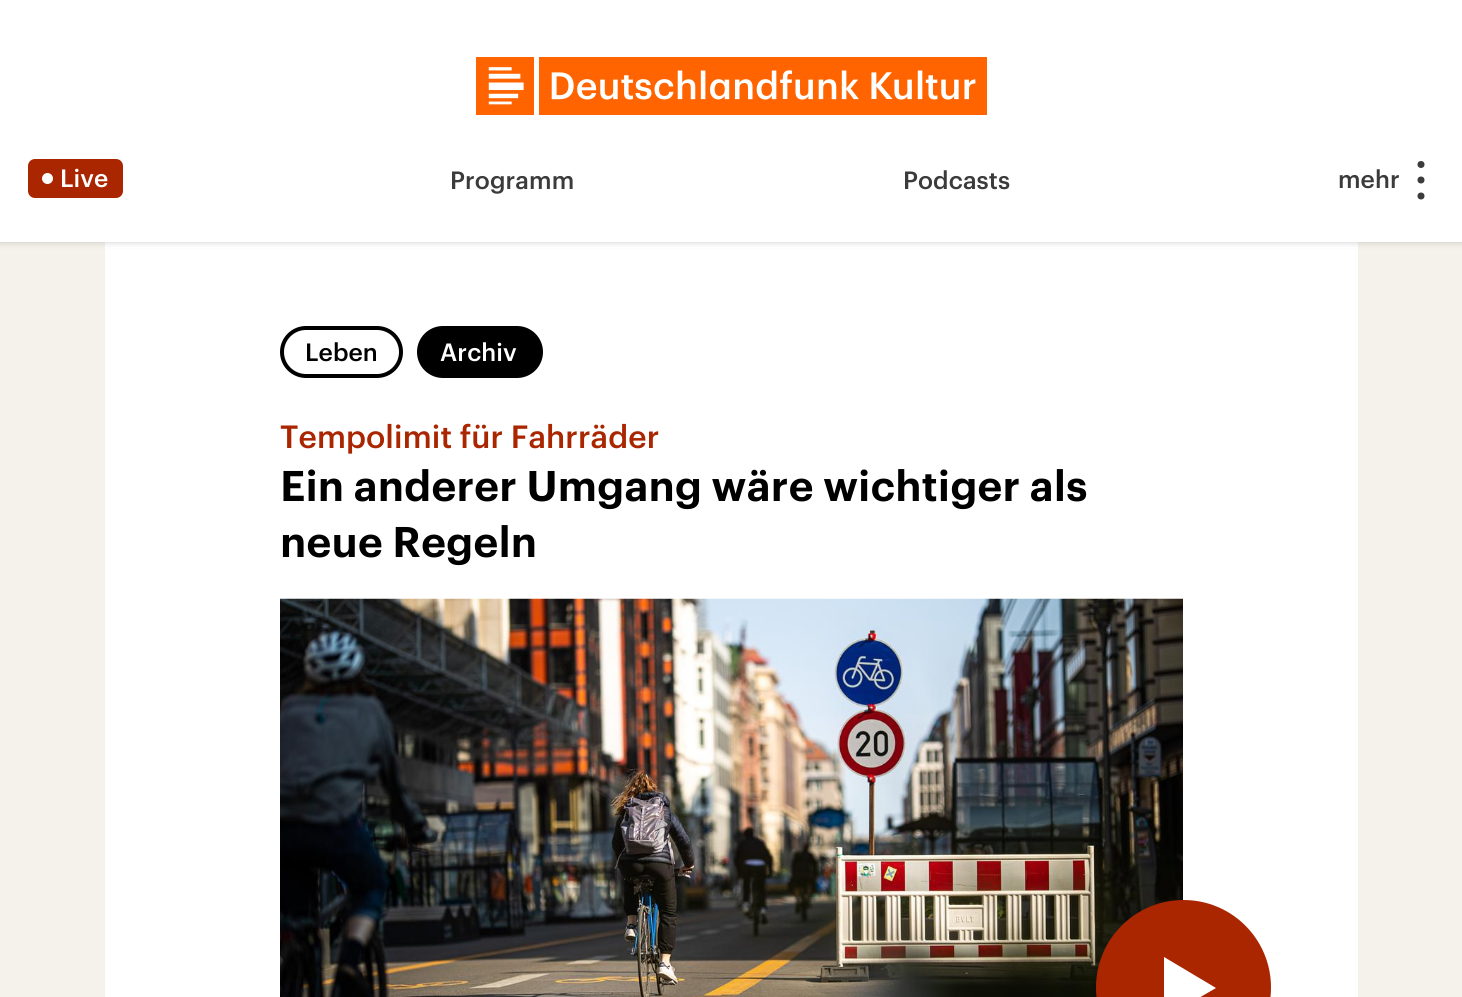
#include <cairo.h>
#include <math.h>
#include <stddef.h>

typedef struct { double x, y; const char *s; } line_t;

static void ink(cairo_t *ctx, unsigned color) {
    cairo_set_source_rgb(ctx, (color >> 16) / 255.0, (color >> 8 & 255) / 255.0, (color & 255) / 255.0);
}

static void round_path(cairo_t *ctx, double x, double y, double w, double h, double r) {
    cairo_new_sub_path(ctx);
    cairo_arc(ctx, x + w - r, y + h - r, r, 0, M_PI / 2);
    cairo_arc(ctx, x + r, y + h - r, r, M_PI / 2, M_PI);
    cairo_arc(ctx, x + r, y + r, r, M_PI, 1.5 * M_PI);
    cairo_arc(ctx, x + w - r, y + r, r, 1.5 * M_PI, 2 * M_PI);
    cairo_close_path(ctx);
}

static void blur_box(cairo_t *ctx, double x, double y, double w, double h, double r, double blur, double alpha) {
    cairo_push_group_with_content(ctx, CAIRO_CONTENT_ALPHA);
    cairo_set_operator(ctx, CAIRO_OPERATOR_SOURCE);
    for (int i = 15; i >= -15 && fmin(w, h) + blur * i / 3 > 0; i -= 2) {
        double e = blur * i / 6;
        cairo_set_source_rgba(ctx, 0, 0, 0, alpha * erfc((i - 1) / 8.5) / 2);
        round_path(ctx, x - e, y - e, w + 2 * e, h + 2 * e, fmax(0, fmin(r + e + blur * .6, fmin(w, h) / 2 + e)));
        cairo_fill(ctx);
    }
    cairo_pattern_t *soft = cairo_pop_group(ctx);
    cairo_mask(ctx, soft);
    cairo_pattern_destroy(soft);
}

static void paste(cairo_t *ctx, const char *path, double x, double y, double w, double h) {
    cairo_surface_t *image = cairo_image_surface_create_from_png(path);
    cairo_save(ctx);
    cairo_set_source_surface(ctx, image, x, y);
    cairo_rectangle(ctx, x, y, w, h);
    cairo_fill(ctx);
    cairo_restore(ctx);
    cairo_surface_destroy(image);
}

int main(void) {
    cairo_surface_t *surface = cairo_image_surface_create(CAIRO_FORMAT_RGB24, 1462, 997);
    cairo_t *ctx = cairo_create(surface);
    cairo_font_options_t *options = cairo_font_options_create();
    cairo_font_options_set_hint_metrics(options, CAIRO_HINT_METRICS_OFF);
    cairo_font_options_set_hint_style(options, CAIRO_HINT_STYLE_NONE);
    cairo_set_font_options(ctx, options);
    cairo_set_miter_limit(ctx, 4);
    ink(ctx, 0xF5F1EB);
    cairo_paint(ctx);
    ink(ctx, 0xFFFFFF);
    cairo_rectangle(ctx, 105, 242, 1253, 755);
    cairo_fill(ctx);
    ink(ctx, 0x000000);
    blur_box(ctx, 0, 0, 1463, 242, 0, 3.5, 0.2);
    ink(ctx, 0xFFFFFF);
    cairo_rectangle(ctx, 0, 0, 1462, 242);
    cairo_fill(ctx);
    paste(ctx, "media/1.png", 476, 57, 511, 58);
    ink(ctx, 0xA92600);
    round_path(ctx, 28, 159, 95, 39, 7);
    cairo_fill(ctx);
    ink(ctx, 0xFFFFFF);
    cairo_arc(ctx, 47.5, 178.5, 5.5, 0, 2 * M_PI);
    cairo_fill(ctx);
    cairo_select_font_face(ctx, "Graphik Medium", CAIRO_FONT_SLANT_NORMAL, CAIRO_FONT_WEIGHT_NORMAL);
    cairo_set_font_size(ctx, 24.5);
    cairo_move_to(ctx, 60, 187);
    cairo_show_text(ctx, "Live");
    ink(ctx, 0x3B3B3B);
    {
        static const line_t items[] = {
            {450, 189, "Programm"},
            {903, 189, "Podcasts"},
            {1338, 188, "mehr"},
        };
        for (size_t i = 0; i < sizeof items / sizeof *items; i++) {
            cairo_move_to(ctx, items[i].x, items[i].y);
            cairo_show_text(ctx, items[i].s);
        }
    }
    cairo_new_path(ctx);
    cairo_arc(ctx, 1421, 164.5, 3.5, 0, 2 * M_PI);
    cairo_fill(ctx);
    cairo_arc(ctx, 1421, 180, 3.5, 0, 2 * M_PI);
    cairo_fill(ctx);
    cairo_arc(ctx, 1421, 196, 3.5, 0, 2 * M_PI);
    cairo_fill(ctx);
    round_path(ctx, 282, 328, 119, 48, 24);
    ink(ctx, 0x000000);
    cairo_set_line_width(ctx, 4);
    cairo_stroke(ctx);
    cairo_move_to(ctx, 305, 361);
    cairo_show_text(ctx, "Leben");
    round_path(ctx, 419, 328, 122, 48, 24);
    cairo_fill_preserve(ctx);
    cairo_stroke(ctx);
    ink(ctx, 0xFFFFFF);
    cairo_move_to(ctx, 440, 361);
    cairo_show_text(ctx, "Archiv");
    cairo_set_font_size(ctx, 31.5);
    ink(ctx, 0xA92600);
    cairo_move_to(ctx, 280, 448);
    cairo_show_text(ctx, "Tempolimit für Fahrräder");
    cairo_select_font_face(ctx, "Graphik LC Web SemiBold", CAIRO_FONT_SLANT_NORMAL, CAIRO_FONT_WEIGHT_NORMAL);
    cairo_set_font_size(ctx, 42);
    ink(ctx, 0x000000);
    cairo_move_to(ctx, 280, 501);
    cairo_show_text(ctx, "Ein anderer Umgang wäre wichtiger als");
    cairo_move_to(ctx, 280, 557);
    cairo_show_text(ctx, "neue Regeln");
    paste(ctx, "media/2.png", 280, 598, 903, 399);
    ink(ctx, 0xA92600);
    cairo_arc(ctx, 1183.5, 987.5, 87.5, 0, 2 * M_PI);
    cairo_fill(ctx);
    ink(ctx, 0xFFFFFF);
    cairo_new_path(ctx);
    cairo_move_to(ctx, 1164, 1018);
    cairo_line_to(ctx, 1164, 957);
    cairo_line_to(ctx, 1216, 988);
    cairo_close_path(ctx);
    cairo_fill(ctx);
    cairo_surface_write_to_png(surface, "image.png");
    cairo_font_options_destroy(options);
    cairo_destroy(ctx);
    cairo_surface_destroy(surface);
    return 0;
}
